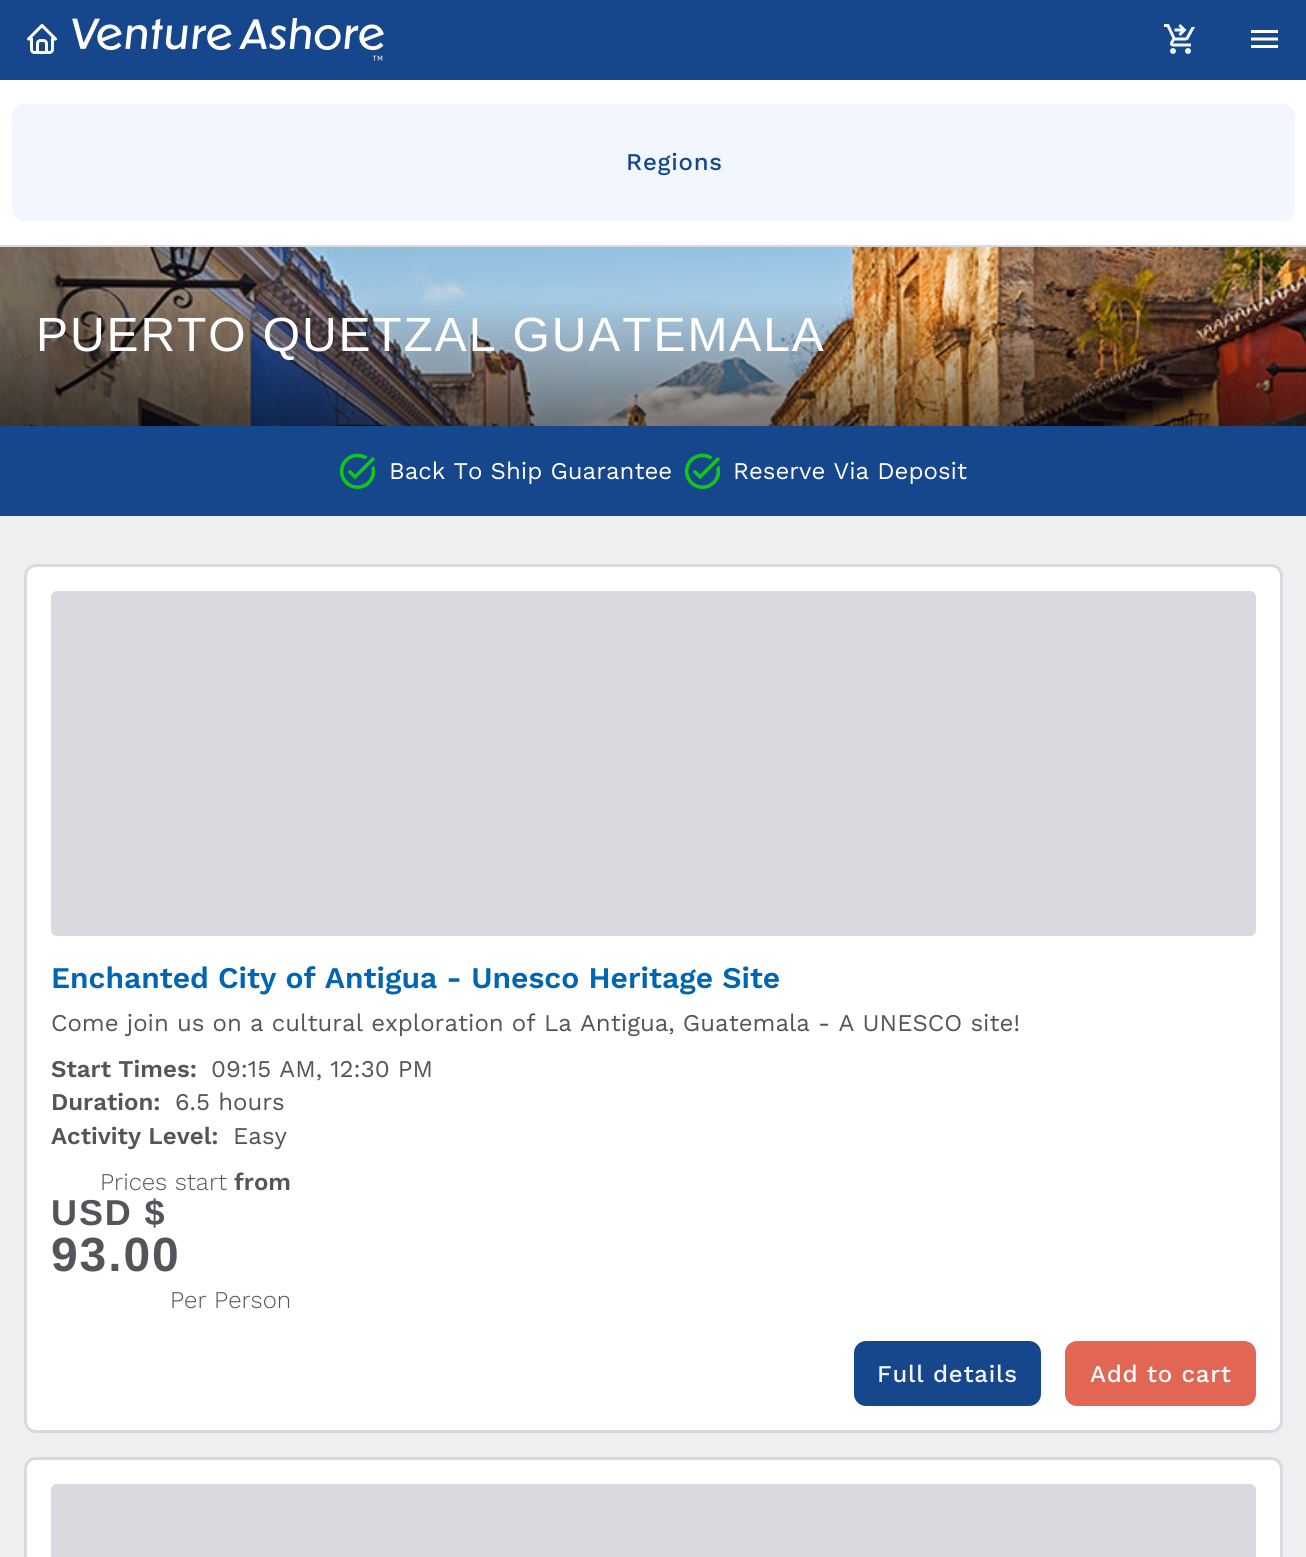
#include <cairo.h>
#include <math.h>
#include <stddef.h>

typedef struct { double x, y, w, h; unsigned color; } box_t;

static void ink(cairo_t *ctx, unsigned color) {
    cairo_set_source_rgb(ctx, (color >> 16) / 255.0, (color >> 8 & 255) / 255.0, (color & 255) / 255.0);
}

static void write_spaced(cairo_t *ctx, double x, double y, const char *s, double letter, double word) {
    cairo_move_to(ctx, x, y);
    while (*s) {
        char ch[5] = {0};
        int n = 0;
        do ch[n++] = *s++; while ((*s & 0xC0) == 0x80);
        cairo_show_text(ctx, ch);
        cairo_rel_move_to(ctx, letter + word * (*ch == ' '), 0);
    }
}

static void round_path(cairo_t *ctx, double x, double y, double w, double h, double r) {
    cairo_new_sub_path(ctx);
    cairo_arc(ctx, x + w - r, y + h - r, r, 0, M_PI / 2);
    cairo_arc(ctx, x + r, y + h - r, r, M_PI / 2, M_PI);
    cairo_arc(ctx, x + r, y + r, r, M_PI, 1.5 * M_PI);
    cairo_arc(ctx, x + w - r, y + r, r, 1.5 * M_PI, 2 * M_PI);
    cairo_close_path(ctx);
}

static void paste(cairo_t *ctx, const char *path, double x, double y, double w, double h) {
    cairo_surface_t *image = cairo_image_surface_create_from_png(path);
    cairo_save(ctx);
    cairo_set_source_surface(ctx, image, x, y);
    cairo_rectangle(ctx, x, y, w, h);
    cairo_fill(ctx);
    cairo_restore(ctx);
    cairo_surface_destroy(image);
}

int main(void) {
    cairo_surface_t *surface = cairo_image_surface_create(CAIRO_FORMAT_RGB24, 1306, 1557);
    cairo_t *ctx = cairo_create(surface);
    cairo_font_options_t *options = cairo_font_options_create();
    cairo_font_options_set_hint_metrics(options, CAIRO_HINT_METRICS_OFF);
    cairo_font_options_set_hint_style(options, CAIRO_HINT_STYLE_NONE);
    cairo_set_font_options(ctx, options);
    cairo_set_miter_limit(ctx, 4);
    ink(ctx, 0x16468C);
    cairo_paint(ctx);
    paste(ctx, "media/1.png", 27, 24, 30, 30);
    paste(ctx, "media/2.png", 72, 18, 312, 43);
    paste(ctx, "media/3.png", 1164, 24, 31, 30);
    paste(ctx, "media/4.png", 1251, 30, 27, 18);
    {
        static const box_t items[] = {
            {0, 516, 1306, 1041, 0xEEEFF1},
            {0, 80, 1306, 165, 0xFFFFFF},
            {0, 245, 1306, 2, 0xD8DADF},
        };
        for (size_t i = 0; i < sizeof items / sizeof *items; i++) {
            ink(ctx, items[i].color);
            cairo_rectangle(ctx, items[i].x, items[i].y, items[i].w, items[i].h);
            cairo_fill(ctx);
        }
    }
    ink(ctx, 0xF2F6FF);
    round_path(ctx, 12, 104, 1283, 117, 12);
    cairo_fill(ctx);
    cairo_select_font_face(ctx, "Work Sans Medium", CAIRO_FONT_SLANT_NORMAL, CAIRO_FONT_WEIGHT_NORMAL);
    cairo_set_font_size(ctx, 24);
    ink(ctx, 0x16468C);
    write_spaced(ctx, 626, 170, "Regions", 0.75, 0);
    paste(ctx, "media/5.png", 0, 247, 1306, 179);
    cairo_select_font_face(ctx, "Liberation Sans", CAIRO_FONT_SLANT_NORMAL, CAIRO_FONT_WEIGHT_NORMAL);
    cairo_set_font_size(ctx, 48);
    ink(ctx, 0xFFFFFF);
    write_spaced(ctx, 36, 351, "PUERTO QUETZAL GUATEMALA", 1.9, 0);
    paste(ctx, "media/6.png", 339, 453, 37, 36);
    cairo_select_font_face(ctx, "Work Sans", CAIRO_FONT_SLANT_NORMAL, CAIRO_FONT_WEIGHT_NORMAL);
    cairo_set_font_size(ctx, 24);
    cairo_move_to(ctx, 389, 479);
    cairo_show_text(ctx, "Back To Ship Guarantee");
    paste(ctx, "media/6.png", 684, 453, 37, 36);
    cairo_move_to(ctx, 733, 479);
    cairo_show_text(ctx, "Reserve Via Deposit");
    round_path(ctx, 25.5, 565.5, 1256, 866, 10.5);
    cairo_fill_preserve(ctx);
    ink(ctx, 0xD8DADF);
    cairo_set_line_width(ctx, 3);
    cairo_stroke(ctx);
    round_path(ctx, 51, 591, 1205, 345, 6);
    cairo_fill(ctx);
    cairo_select_font_face(ctx, "Work Sans SemiBold", CAIRO_FONT_SLANT_NORMAL, CAIRO_FONT_WEIGHT_NORMAL);
    cairo_set_font_size(ctx, 30);
    ink(ctx, 0x0066B3);
    cairo_move_to(ctx, 51, 988);
    cairo_show_text(ctx, "Enchanted City of Antigua - Unesco Heritage Site");
    cairo_select_font_face(ctx, "Work Sans", CAIRO_FONT_SLANT_NORMAL, CAIRO_FONT_WEIGHT_NORMAL);
    cairo_set_font_size(ctx, 24);
    ink(ctx, 0x53555A);
    cairo_move_to(ctx, 51, 1031);
    cairo_show_text(ctx, "Come join us on a cultural exploration of La Antigua, Guatemala - A UNESCO site!");
    cairo_select_font_face(ctx, "Work Sans SemiBold", CAIRO_FONT_SLANT_NORMAL, CAIRO_FONT_WEIGHT_NORMAL);
    cairo_move_to(ctx, 51, 1077);
    cairo_show_text(ctx, "Start Times:");
    cairo_select_font_face(ctx, "Work Sans", CAIRO_FONT_SLANT_NORMAL, CAIRO_FONT_WEIGHT_NORMAL);
    cairo_move_to(ctx, 211, 1077);
    cairo_show_text(ctx, "09:15 AM, 12:30 PM");
    cairo_select_font_face(ctx, "Work Sans SemiBold", CAIRO_FONT_SLANT_NORMAL, CAIRO_FONT_WEIGHT_NORMAL);
    cairo_move_to(ctx, 51, 1110);
    cairo_show_text(ctx, "Duration:");
    cairo_select_font_face(ctx, "Work Sans", CAIRO_FONT_SLANT_NORMAL, CAIRO_FONT_WEIGHT_NORMAL);
    cairo_move_to(ctx, 175, 1110);
    cairo_show_text(ctx, "6.5 hours");
    cairo_select_font_face(ctx, "Work Sans SemiBold", CAIRO_FONT_SLANT_NORMAL, CAIRO_FONT_WEIGHT_NORMAL);
    cairo_move_to(ctx, 51, 1144);
    cairo_show_text(ctx, "Activity Level:");
    cairo_select_font_face(ctx, "Work Sans", CAIRO_FONT_SLANT_NORMAL, CAIRO_FONT_WEIGHT_NORMAL);
    cairo_move_to(ctx, 233, 1144);
    cairo_show_text(ctx, "Easy");
    cairo_select_font_face(ctx, "Work Sans Light", CAIRO_FONT_SLANT_NORMAL, CAIRO_FONT_WEIGHT_NORMAL);
    cairo_move_to(ctx, 100, 1190);
    cairo_show_text(ctx, "Prices start");
    cairo_select_font_face(ctx, "Work Sans SemiBold", CAIRO_FONT_SLANT_NORMAL, CAIRO_FONT_WEIGHT_NORMAL);
    cairo_move_to(ctx, 234, 1190);
    cairo_show_text(ctx, "from");
    cairo_select_font_face(ctx, "Liberation Sans", CAIRO_FONT_SLANT_NORMAL, CAIRO_FONT_WEIGHT_BOLD);
    cairo_set_font_size(ctx, 36);
    write_spaced(ctx, 51, 1225, "USD $", 1.9, 0);
    cairo_set_font_size(ctx, 48);
    write_spaced(ctx, 51, 1271, "93.00", 1.9, 0);
    cairo_select_font_face(ctx, "Work Sans Light", CAIRO_FONT_SLANT_NORMAL, CAIRO_FONT_WEIGHT_NORMAL);
    cairo_set_font_size(ctx, 24);
    cairo_move_to(ctx, 170, 1308);
    cairo_show_text(ctx, "Per Person");
    ink(ctx, 0x16468C);
    round_path(ctx, 854, 1341, 187, 65, 12);
    cairo_fill(ctx);
    cairo_select_font_face(ctx, "Work Sans Medium", CAIRO_FONT_SLANT_NORMAL, CAIRO_FONT_WEIGHT_NORMAL);
    ink(ctx, 0xF2F6FF);
    write_spaced(ctx, 877, 1382, "Full details", 0.75, 0);
    ink(ctx, 0xE16754);
    round_path(ctx, 1065, 1341, 191, 65, 12);
    cairo_fill(ctx);
    ink(ctx, 0xFFFFFF);
    write_spaced(ctx, 1090, 1382, "Add to cart", 0.75, 0);
    round_path(ctx, 25.5, 1458.5, 1256, 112, 10.5);
    cairo_fill_preserve(ctx);
    ink(ctx, 0xD8DADF);
    cairo_stroke(ctx);
    round_path(ctx, 51, 1484, 1205, 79, 6);
    cairo_fill(ctx);
    cairo_surface_write_to_png(surface, "image.png");
    cairo_font_options_destroy(options);
    cairo_destroy(ctx);
    cairo_surface_destroy(surface);
    return 0;
}
